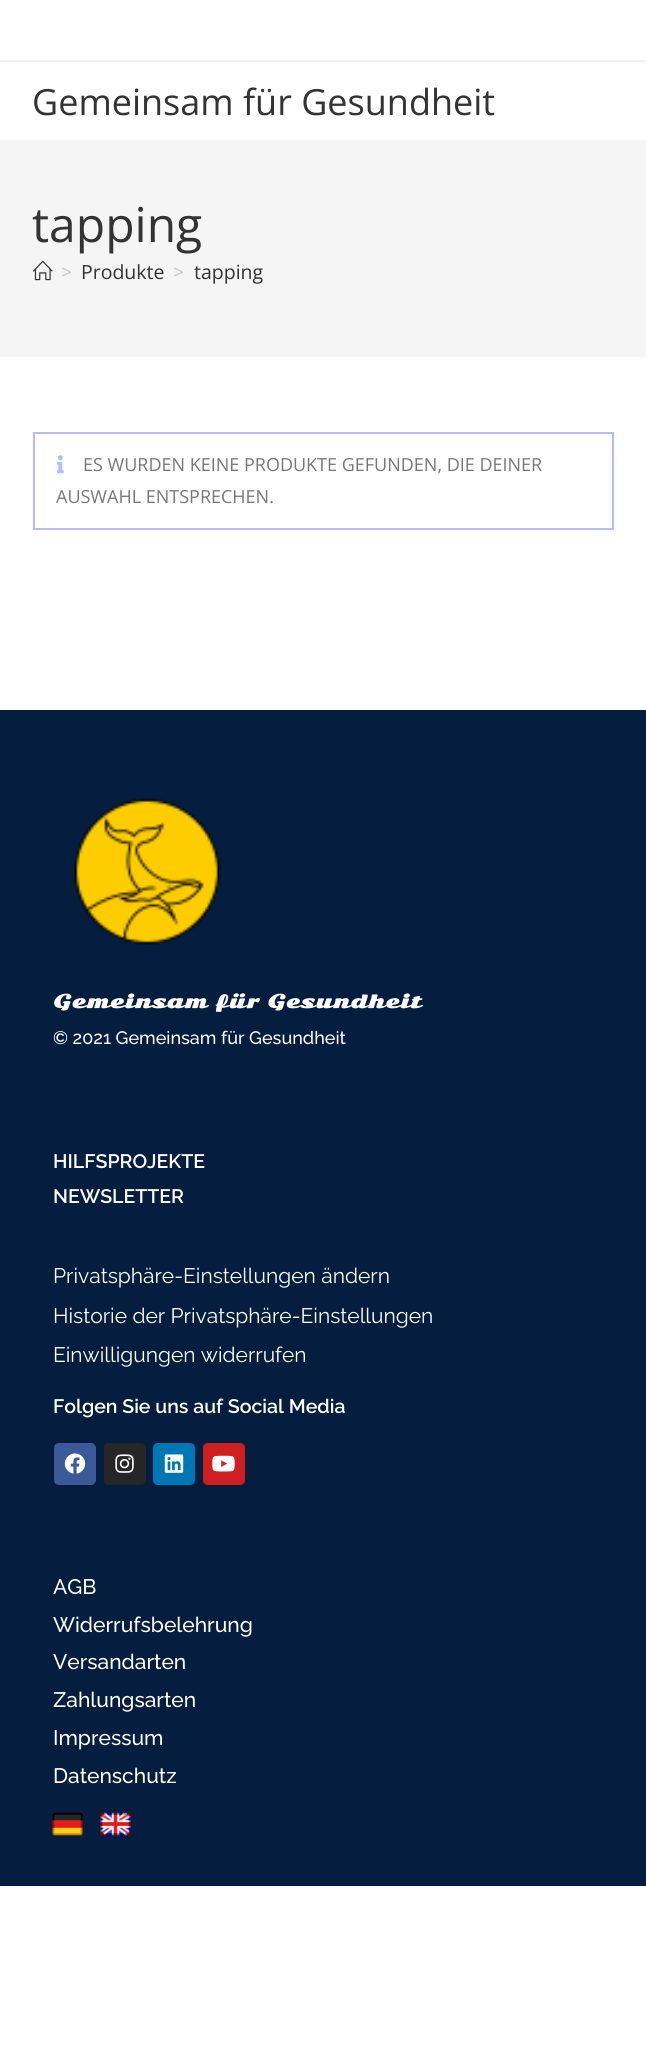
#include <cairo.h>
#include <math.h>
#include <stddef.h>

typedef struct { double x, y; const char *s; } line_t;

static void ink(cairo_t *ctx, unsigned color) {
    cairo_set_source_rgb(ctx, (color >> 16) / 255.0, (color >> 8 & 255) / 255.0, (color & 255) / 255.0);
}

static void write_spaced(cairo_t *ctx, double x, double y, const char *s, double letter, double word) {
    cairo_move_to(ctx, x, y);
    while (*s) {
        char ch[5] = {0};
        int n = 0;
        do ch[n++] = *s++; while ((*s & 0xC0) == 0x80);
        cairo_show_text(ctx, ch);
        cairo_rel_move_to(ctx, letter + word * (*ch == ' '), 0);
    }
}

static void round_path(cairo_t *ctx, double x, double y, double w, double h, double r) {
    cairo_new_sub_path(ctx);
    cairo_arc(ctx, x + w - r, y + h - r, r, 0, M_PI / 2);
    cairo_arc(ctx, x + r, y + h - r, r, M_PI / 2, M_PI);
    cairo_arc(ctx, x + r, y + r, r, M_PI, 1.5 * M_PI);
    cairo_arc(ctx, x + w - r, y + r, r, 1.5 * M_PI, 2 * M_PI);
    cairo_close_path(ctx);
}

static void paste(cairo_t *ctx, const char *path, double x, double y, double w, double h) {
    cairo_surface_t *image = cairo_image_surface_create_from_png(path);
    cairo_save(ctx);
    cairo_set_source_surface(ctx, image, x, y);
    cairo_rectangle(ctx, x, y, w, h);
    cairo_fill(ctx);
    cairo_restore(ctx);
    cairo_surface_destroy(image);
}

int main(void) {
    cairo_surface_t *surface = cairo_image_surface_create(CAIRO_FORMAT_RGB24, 646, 2067);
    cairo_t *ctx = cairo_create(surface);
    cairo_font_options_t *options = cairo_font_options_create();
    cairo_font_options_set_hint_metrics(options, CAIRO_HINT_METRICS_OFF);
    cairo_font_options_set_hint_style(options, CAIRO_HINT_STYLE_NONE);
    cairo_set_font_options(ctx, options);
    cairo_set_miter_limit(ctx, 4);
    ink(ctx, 0xFFFFFF);
    cairo_paint(ctx);
    ink(ctx, 0xF1F1F1);
    cairo_rectangle(ctx, 0, 60, 646, 2);
    cairo_fill(ctx);
    cairo_select_font_face(ctx, "Open Sans", CAIRO_FONT_SLANT_NORMAL, CAIRO_FONT_WEIGHT_NORMAL);
    cairo_set_font_size(ctx, 36);
    ink(ctx, 0x333333);
    cairo_move_to(ctx, 32, 115);
    cairo_show_text(ctx, "Gemeinsam für Gesundheit");
    ink(ctx, 0xF5F5F5);
    cairo_rectangle(ctx, 0, 140, 646, 217);
    cairo_fill(ctx);
    cairo_set_font_size(ctx, 48);
    ink(ctx, 0x333333);
    cairo_move_to(ctx, 32, 242);
    cairo_show_text(ctx, "tapping");
    paste(ctx, "media/1.png", 33, 260, 20, 21);
    cairo_set_font_size(ctx, 19.5);
    ink(ctx, 0xC6C6C6);
    cairo_move_to(ctx, 61, 279);
    cairo_show_text(ctx, ">");
    ink(ctx, 0x333333);
    cairo_move_to(ctx, 81, 279);
    cairo_show_text(ctx, "Produkte");
    ink(ctx, 0xC6C6C6);
    cairo_move_to(ctx, 173, 279);
    cairo_show_text(ctx, ">");
    ink(ctx, 0x333333);
    cairo_move_to(ctx, 194, 279);
    cairo_show_text(ctx, "tapping");
    cairo_rectangle(ctx, 34, 433, 579, 96);
    ink(ctx, 0xB1BEFD);
    cairo_stroke(ctx);
    paste(ctx, "media/2.png", 57, 455, 7, 19);
    cairo_set_font_size(ctx, 18);
    ink(ctx, 0x777777);
    cairo_move_to(ctx, 83, 471);
    cairo_show_text(ctx, "ES WURDEN KEINE PRODUKTE GEFUNDEN, DIE DEINER");
    cairo_move_to(ctx, 56, 503);
    cairo_show_text(ctx, "AUSWAHL ENTSPRECHEN.");
    ink(ctx, 0x051D3E);
    cairo_rectangle(ctx, 0, 710, 646, 1176);
    cairo_fill(ctx);
    paste(ctx, "media/3.png", 74, 798, 147, 147);
    cairo_select_font_face(ctx, "Sonsie One", CAIRO_FONT_SLANT_NORMAL, CAIRO_FONT_WEIGHT_BOLD);
    ink(ctx, 0xFFFFFF);
    write_spaced(ctx, 53, 1008, "Gemeinsam für Gesundheit", 1.05, 0);
    cairo_select_font_face(ctx, "Raleway Medium", CAIRO_FONT_SLANT_NORMAL, CAIRO_FONT_WEIGHT_NORMAL);
    cairo_move_to(ctx, 53, 1044);
    cairo_show_text(ctx, "© 2021 Gemeinsam für Gesundheit");
    cairo_select_font_face(ctx, "Raleway SemiBold", CAIRO_FONT_SLANT_NORMAL, CAIRO_FONT_WEIGHT_NORMAL);
    cairo_set_font_size(ctx, 19.5);
    cairo_move_to(ctx, 53, 1168);
    cairo_show_text(ctx, "HILFSPROJEKTE");
    cairo_move_to(ctx, 53, 1203);
    cairo_show_text(ctx, "NEWSLETTER");
    cairo_select_font_face(ctx, "Raleway", CAIRO_FONT_SLANT_NORMAL, CAIRO_FONT_WEIGHT_NORMAL);
    cairo_set_font_size(ctx, 21);
    {
        static const line_t items[] = {
            {53, 1283, "Privatsphäre-Einstellungen ändern"},
            {53, 1323, "Historie der Privatsphäre-Einstellungen"},
            {53, 1362, "Einwilligungen widerrufen"},
        };
        for (size_t i = 0; i < sizeof items / sizeof *items; i++) {
            cairo_move_to(ctx, items[i].x, items[i].y);
            cairo_show_text(ctx, items[i].s);
        }
    }
    cairo_select_font_face(ctx, "Raleway SemiBold", CAIRO_FONT_SLANT_NORMAL, CAIRO_FONT_WEIGHT_NORMAL);
    cairo_set_font_size(ctx, 19.5);
    cairo_move_to(ctx, 53, 1413);
    cairo_show_text(ctx, "Folgen Sie uns auf Social Media");
    ink(ctx, 0x3B5998);
    round_path(ctx, 54, 1443, 42, 42, 5);
    cairo_fill(ctx);
    paste(ctx, "media/4.png", 64, 1453, 22, 21);
    ink(ctx, 0x262626);
    round_path(ctx, 104, 1443, 42, 42, 5);
    cairo_fill(ctx);
    paste(ctx, "media/5.png", 115, 1454, 19, 19);
    ink(ctx, 0x0077B5);
    round_path(ctx, 153, 1443, 42, 42, 5);
    cairo_fill(ctx);
    paste(ctx, "media/6.png", 164, 1454, 20, 19);
    ink(ctx, 0xCD201F);
    round_path(ctx, 203, 1443, 42, 42, 5);
    cairo_fill(ctx);
    paste(ctx, "media/7.png", 212, 1455, 23, 17);
    cairo_select_font_face(ctx, "Raleway Medium", CAIRO_FONT_SLANT_NORMAL, CAIRO_FONT_WEIGHT_NORMAL);
    cairo_set_font_size(ctx, 21);
    ink(ctx, 0xFFFFFF);
    {
        static const line_t items[] = {
            {53, 1594, "AGB"},
            {53, 1632, "Widerrufsbelehrung"},
            {53, 1669, "Versandarten"},
            {53, 1707, "Zahlungsarten"},
            {53, 1745, "Impressum"},
            {53, 1783, "Datenschutz"},
        };
        for (size_t i = 0; i < sizeof items / sizeof *items; i++) {
            cairo_move_to(ctx, items[i].x, items[i].y);
            cairo_show_text(ctx, items[i].s);
        }
    }
    paste(ctx, "media/8.png", 52, 1812, 31, 24);
    paste(ctx, "media/9.png", 100, 1812, 31, 24);
    cairo_surface_write_to_png(surface, "image.png");
    cairo_font_options_destroy(options);
    cairo_destroy(ctx);
    cairo_surface_destroy(surface);
    return 0;
}
